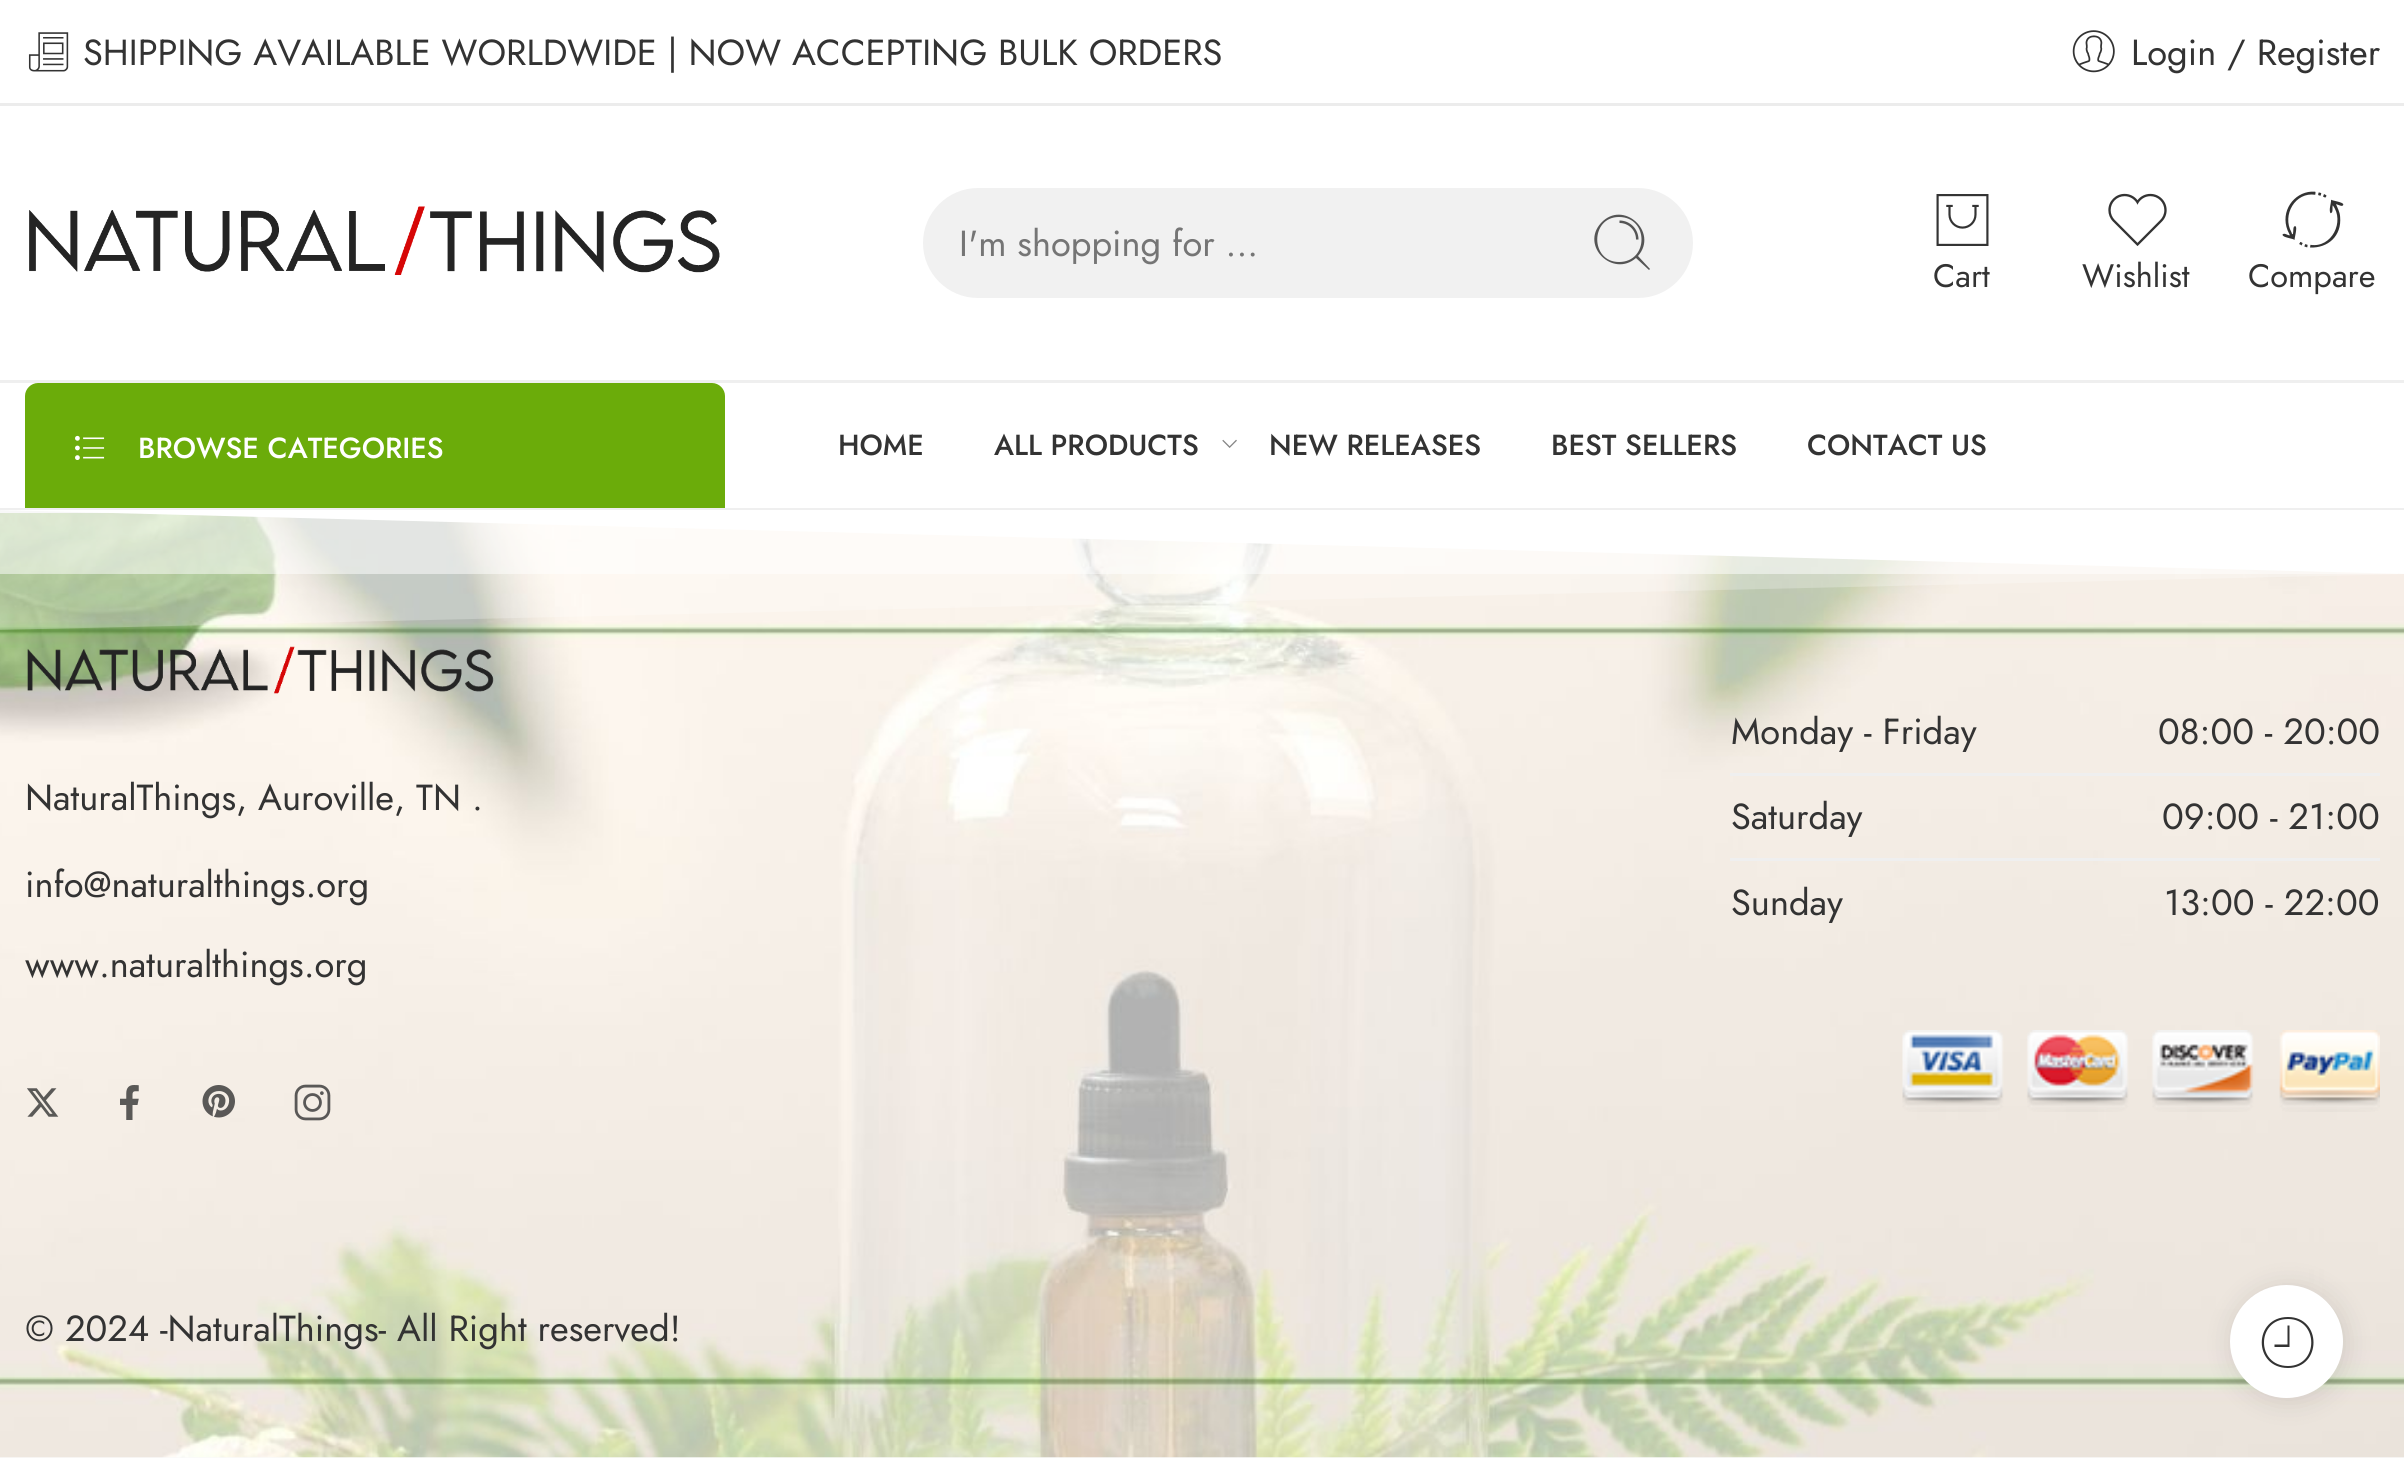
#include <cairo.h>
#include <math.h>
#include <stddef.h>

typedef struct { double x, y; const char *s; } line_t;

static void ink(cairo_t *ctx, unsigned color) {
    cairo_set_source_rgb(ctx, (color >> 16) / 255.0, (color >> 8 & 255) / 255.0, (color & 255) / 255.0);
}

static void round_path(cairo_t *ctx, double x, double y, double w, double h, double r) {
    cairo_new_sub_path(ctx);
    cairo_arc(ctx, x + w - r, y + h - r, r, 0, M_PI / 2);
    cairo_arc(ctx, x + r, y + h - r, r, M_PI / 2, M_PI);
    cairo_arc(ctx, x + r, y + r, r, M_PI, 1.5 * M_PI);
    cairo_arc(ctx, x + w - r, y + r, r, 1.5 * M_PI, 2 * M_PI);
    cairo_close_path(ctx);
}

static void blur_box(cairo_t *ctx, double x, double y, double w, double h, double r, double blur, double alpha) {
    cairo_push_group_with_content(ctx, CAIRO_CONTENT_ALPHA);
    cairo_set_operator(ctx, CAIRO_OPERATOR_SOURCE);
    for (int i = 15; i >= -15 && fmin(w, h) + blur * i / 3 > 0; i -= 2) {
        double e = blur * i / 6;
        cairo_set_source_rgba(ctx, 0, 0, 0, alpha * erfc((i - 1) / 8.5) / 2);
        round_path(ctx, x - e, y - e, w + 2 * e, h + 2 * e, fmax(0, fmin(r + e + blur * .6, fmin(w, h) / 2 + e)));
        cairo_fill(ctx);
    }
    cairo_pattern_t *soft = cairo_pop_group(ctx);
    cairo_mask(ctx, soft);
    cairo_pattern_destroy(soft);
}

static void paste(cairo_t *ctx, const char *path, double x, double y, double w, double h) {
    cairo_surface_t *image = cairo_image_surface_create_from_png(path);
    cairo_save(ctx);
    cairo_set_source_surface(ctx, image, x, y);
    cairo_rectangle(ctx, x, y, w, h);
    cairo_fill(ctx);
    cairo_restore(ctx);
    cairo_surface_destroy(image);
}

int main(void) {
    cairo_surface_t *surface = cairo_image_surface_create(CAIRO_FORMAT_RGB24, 2404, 1459);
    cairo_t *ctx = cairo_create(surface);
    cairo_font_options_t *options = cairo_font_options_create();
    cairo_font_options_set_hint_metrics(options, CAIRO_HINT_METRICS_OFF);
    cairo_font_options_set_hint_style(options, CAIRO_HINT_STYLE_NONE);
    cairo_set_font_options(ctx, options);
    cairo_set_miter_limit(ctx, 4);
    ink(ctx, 0xFFFFFF);
    cairo_paint(ctx);
    ink(ctx, 0xECECEC);
    cairo_rectangle(ctx, 0, 103, 2404, 3);
    cairo_fill(ctx);
    paste(ctx, "media/1.png", 28, 32, 41, 40);
    cairo_select_font_face(ctx, "Jost", CAIRO_FONT_SLANT_NORMAL, CAIRO_FONT_WEIGHT_NORMAL);
    cairo_set_font_size(ctx, 36.25);
    ink(ctx, 0x333333);
    cairo_move_to(ctx, 83, 65);
    cairo_show_text(ctx, "SHIPPING AVAILABLE WORLDWIDE | NOW ACCEPTING BULK ORDERS");
    paste(ctx, "media/2.png", 2072, 30, 43, 43);
    cairo_move_to(ctx, 2131, 65);
    cairo_show_text(ctx, "Login / Register");
    paste(ctx, "media/3.png", 29, 206, 691, 69);
    ink(ctx, 0xF1F1F1);
    round_path(ctx, 923, 188, 770, 110, 55);
    cairo_fill(ctx);
    ink(ctx, 0x757575);
    cairo_move_to(ctx, 959, 256);
    cairo_show_text(ctx, "I'm shopping for ...");
    ink(ctx, 0x555555);
    cairo_new_path(ctx);
    cairo_move_to(ctx, 1650, 269);
    cairo_line_to(ctx, 1638, 256);
    cairo_curve_to(ctx, 1659, 232, 1623, 199, 1601, 223);
    cairo_curve_to(ctx, 1580, 246, 1613, 278, 1636, 258);
    cairo_line_to(ctx, 1649, 270);
    cairo_close_path(ctx);
    cairo_move_to(ctx, 1619, 262);
    cairo_curve_to(ctx, 1590, 262, 1590, 217, 1619, 217);
    cairo_curve_to(ctx, 1649, 217, 1649, 262, 1619, 262);
    cairo_close_path(ctx);
    cairo_fill(ctx);
    cairo_new_path(ctx);
    cairo_move_to(ctx, 1619.5, 220.5);
    cairo_line_to(ctx, 1619.5, 223);
    cairo_curve_to(ctx, 1628.5, 223, 1636, 230, 1636, 239.5);
    cairo_line_to(ctx, 1638.5, 239.5);
    cairo_curve_to(ctx, 1638.5, 229, 1630, 220.5, 1619.5, 220.5);
    cairo_close_path(ctx);
    cairo_fill(ctx);
    paste(ctx, "media/4.png", 1936, 194, 53, 52);
    cairo_set_font_size(ctx, 32.5);
    ink(ctx, 0x333333);
    cairo_move_to(ctx, 1933, 287);
    cairo_show_text(ctx, "Cart");
    paste(ctx, "media/5.png", 2108, 193, 59, 53);
    cairo_move_to(ctx, 2082, 287);
    cairo_show_text(ctx, "Wishlist");
    paste(ctx, "media/6.png", 2282, 191, 62, 57);
    cairo_move_to(ctx, 2248, 287);
    cairo_show_text(ctx, "Compare");
    ink(ctx, 0xEFEFEF);
    cairo_rectangle(ctx, 0, 380, 2404, 3);
    cairo_fill(ctx);
    cairo_rectangle(ctx, 0, 508, 2404, 2);
    cairo_fill(ctx);
    ink(ctx, 0x6BAC0A);
    cairo_new_path(ctx);
    cairo_move_to(ctx, 38, 383);
    cairo_line_to(ctx, 712, 383);
    cairo_curve_to(ctx, 719, 383, 725, 389, 725, 396);
    cairo_line_to(ctx, 725, 508);
    cairo_line_to(ctx, 25, 508);
    cairo_line_to(ctx, 25, 396);
    cairo_curve_to(ctx, 25, 389, 31, 383, 38, 383);
    cairo_close_path(ctx);
    cairo_fill(ctx);
    paste(ctx, "media/7.png", 75, 435, 30, 25);
    cairo_select_font_face(ctx, "Jost Medium", CAIRO_FONT_SLANT_NORMAL, CAIRO_FONT_WEIGHT_NORMAL);
    cairo_set_font_size(ctx, 29);
    ink(ctx, 0xFFFFFF);
    cairo_move_to(ctx, 138, 458);
    cairo_show_text(ctx, "BROWSE CATEGORIES");
    ink(ctx, 0x333333);
    cairo_move_to(ctx, 838, 455);
    cairo_show_text(ctx, "HOME");
    cairo_move_to(ctx, 994, 455);
    cairo_show_text(ctx, "ALL PRODUCTS");
    paste(ctx, "media/8.png", 1222, 439, 15, 9);
    {
        static const line_t items[] = {
            {1269, 455, "NEW RELEASES"},
            {1551, 455, "BEST SELLERS"},
            {1807, 455, "CONTACT US"},
        };
        for (size_t i = 0; i < sizeof items / sizeof *items; i++) {
            cairo_move_to(ctx, items[i].x, items[i].y);
            cairo_show_text(ctx, items[i].s);
        }
    }
    ink(ctx, 0xFAFAFA);
    cairo_rectangle(ctx, 0, 1457, 2404, 1);
    cairo_fill(ctx);
    paste(ctx, "media/9.png", 0, 513, 2404, 945);
    ink(ctx, 0xECECEC);
    cairo_rectangle(ctx, 0, 510, 111, 3);
    cairo_fill(ctx);
    ink(ctx, 0xFFFFFF);
    cairo_new_path(ctx);
    cairo_move_to(ctx, -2, 510);
    cairo_line_to(ctx, 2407, 510);
    cairo_line_to(ctx, 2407, 574);
    cairo_close_path(ctx);
    cairo_fill(ctx);
    cairo_set_source_rgba(ctx, 1, 1, 1, 0.5);
    cairo_rectangle(ctx, 0, 510, 2398, 64);
    cairo_fill(ctx);
    cairo_set_source_rgba(ctx, 1, 1, 1, 0.25);
    cairo_new_path(ctx);
    cairo_move_to(ctx, 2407, 510);
    cairo_line_to(ctx, -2, 510);
    cairo_line_to(ctx, -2, 630);
    cairo_line_to(ctx, 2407, 574);
    cairo_close_path(ctx);
    cairo_fill(ctx);
    paste(ctx, "media/10.png", 27, 646, 467, 48);
    cairo_select_font_face(ctx, "Jost", CAIRO_FONT_SLANT_NORMAL, CAIRO_FONT_WEIGHT_NORMAL);
    cairo_set_font_size(ctx, 36.25);
    ink(ctx, 0x333333);
    {
        static const line_t items[] = {
            {25, 810, "NaturalThings, Auroville, TN ."},
            {25, 897, "info@naturalthings.org"},
            {25, 977, "www.naturalthings.org"},
        };
        for (size_t i = 0; i < sizeof items / sizeof *items; i++) {
            cairo_move_to(ctx, items[i].x, items[i].y);
            cairo_show_text(ctx, items[i].s);
        }
    }
    paste(ctx, "media/11.png", 27, 1088, 32, 29);
    paste(ctx, "media/12.png", 120, 1085, 19, 35);
    paste(ctx, "media/13.png", 202, 1085, 33, 33);
    paste(ctx, "media/14.png", 294, 1084, 37, 37);
    ink(ctx, 0xEFEFEF);
    cairo_rectangle(ctx, 1730, 773, 650, 3);
    cairo_fill(ctx);
    ink(ctx, 0x333333);
    cairo_move_to(ctx, 1731, 744);
    cairo_show_text(ctx, "Monday - Friday");
    cairo_move_to(ctx, 2158, 744);
    cairo_show_text(ctx, "08:00 - 20:00");
    ink(ctx, 0xEFEFEF);
    cairo_rectangle(ctx, 1730, 858, 650, 3);
    cairo_fill(ctx);
    ink(ctx, 0x333333);
    {
        static const line_t items[] = {
            {1731, 829, "Saturday"},
            {2162, 829, "09:00 - 21:00"},
            {1731, 915, "Sunday"},
            {2164, 915, "13:00 - 22:00"},
        };
        for (size_t i = 0; i < sizeof items / sizeof *items; i++) {
            cairo_move_to(ctx, items[i].x, items[i].y);
            cairo_show_text(ctx, items[i].s);
        }
    }
    paste(ctx, "media/15.png", 1902, 1030, 478, 82);
    cairo_move_to(ctx, 25, 1341);
    cairo_show_text(ctx, "© 2024 -NaturalThings- All Right reserved!");
    ink(ctx, 0x000000);
    blur_box(ctx, 2230, 1285, 118, 118, 59, 12.5, 0.1);
    ink(ctx, 0xFFFFFF);
    cairo_arc(ctx, 2286.5, 1341.5, 56.5, 0, 2 * M_PI);
    cairo_fill(ctx);
    ink(ctx, 0x333333);
    cairo_new_path(ctx);
    cairo_move_to(ctx, 2288, 1317);
    cairo_curve_to(ctx, 2253, 1317, 2253, 1368, 2288, 1368);
    cairo_curve_to(ctx, 2322, 1368, 2322, 1317, 2288, 1317);
    cairo_close_path(ctx);
    cairo_move_to(ctx, 2288, 1366);
    cairo_curve_to(ctx, 2256, 1366, 2256, 1319, 2288, 1319);
    cairo_curve_to(ctx, 2319, 1319, 2319, 1366, 2288, 1366);
    cairo_close_path(ctx);
    cairo_fill(ctx);
    cairo_new_path(ctx);
    cairo_move_to(ctx, 2287.5, 1344.5);
    cairo_line_to(ctx, 2274.5, 1344.5);
    cairo_line_to(ctx, 2274.5, 1347);
    cairo_line_to(ctx, 2289.5, 1347);
    cairo_line_to(ctx, 2289.5, 1325.5);
    cairo_line_to(ctx, 2287.5, 1325.5);
    cairo_close_path(ctx);
    cairo_fill(ctx);
    cairo_surface_write_to_png(surface, "image.png");
    cairo_font_options_destroy(options);
    cairo_destroy(ctx);
    cairo_surface_destroy(surface);
    return 0;
}
